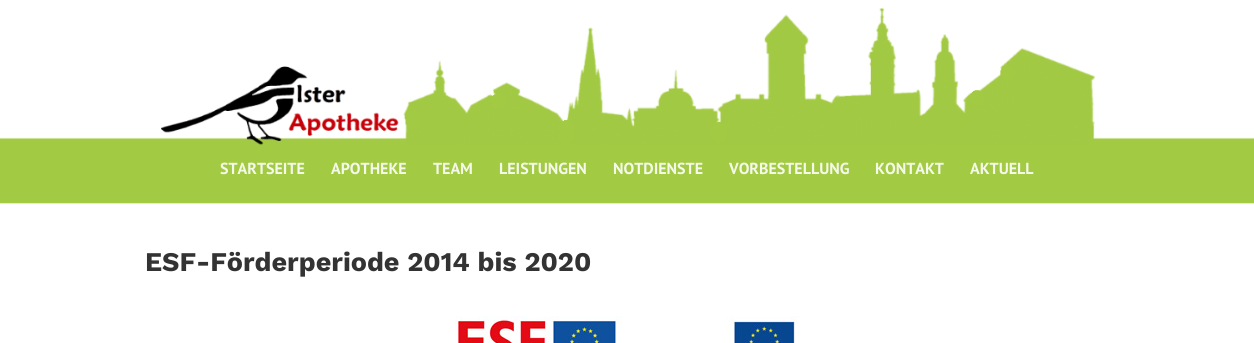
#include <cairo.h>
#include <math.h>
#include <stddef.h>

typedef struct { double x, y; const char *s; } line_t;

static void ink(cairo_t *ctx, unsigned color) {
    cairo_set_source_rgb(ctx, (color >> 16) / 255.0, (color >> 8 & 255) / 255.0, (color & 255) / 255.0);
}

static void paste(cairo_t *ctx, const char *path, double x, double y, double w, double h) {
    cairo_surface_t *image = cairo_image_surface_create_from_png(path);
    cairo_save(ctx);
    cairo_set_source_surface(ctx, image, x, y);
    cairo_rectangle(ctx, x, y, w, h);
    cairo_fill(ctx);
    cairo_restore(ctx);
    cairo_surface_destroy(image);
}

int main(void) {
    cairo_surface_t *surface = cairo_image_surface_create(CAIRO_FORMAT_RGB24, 1254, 343);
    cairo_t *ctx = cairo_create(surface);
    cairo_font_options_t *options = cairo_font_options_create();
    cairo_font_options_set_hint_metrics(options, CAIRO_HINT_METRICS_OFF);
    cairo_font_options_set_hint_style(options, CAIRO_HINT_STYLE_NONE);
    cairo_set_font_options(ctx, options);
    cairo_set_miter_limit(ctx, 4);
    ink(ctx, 0xFFFFFF);
    cairo_paint(ctx);
    ink(ctx, 0xE6E6E6);
    cairo_rectangle(ctx, 0, 203, 1254, 1);
    cairo_fill(ctx);
    ink(ctx, 0xA2CA43);
    cairo_rectangle(ctx, 0, 137, 1254, 66);
    cairo_fill(ctx);
    paste(ctx, "media/1.png", 0, 0, 1254, 139);
    paste(ctx, "media/2.png", 161, 8, 934, 137);
    cairo_select_font_face(ctx, "PT Sans", CAIRO_FONT_SLANT_NORMAL, CAIRO_FONT_WEIGHT_BOLD);
    cairo_set_font_size(ctx, 16);
    ink(ctx, 0xF5F9EA);
    {
        static const line_t items[] = {
            {220, 174, "STARTSEITE"},
            {331, 174, "APOTHEKE"},
            {433, 174, "TEAM"},
            {499, 174, "LEISTUNGEN"},
            {613, 174, "NOTDIENSTE"},
            {729, 174, "VORBESTELLUNG"},
            {875, 174, "KONTAKT"},
            {970, 174, "AKTUELL"},
        };
        for (size_t i = 0; i < sizeof items / sizeof *items; i++) {
            cairo_move_to(ctx, items[i].x, items[i].y);
            cairo_show_text(ctx, items[i].s);
        }
    }
    cairo_select_font_face(ctx, "Work Sans", CAIRO_FONT_SLANT_NORMAL, CAIRO_FONT_WEIGHT_BOLD);
    cairo_set_font_size(ctx, 27);
    ink(ctx, 0x333333);
    cairo_move_to(ctx, 145, 271);
    cairo_show_text(ctx, "ESF-Förderperiode 2014 bis 2020");
    paste(ctx, "media/3.png", 455, 316, 344, 27);
    cairo_surface_write_to_png(surface, "image.png");
    cairo_font_options_destroy(options);
    cairo_destroy(ctx);
    cairo_surface_destroy(surface);
    return 0;
}
